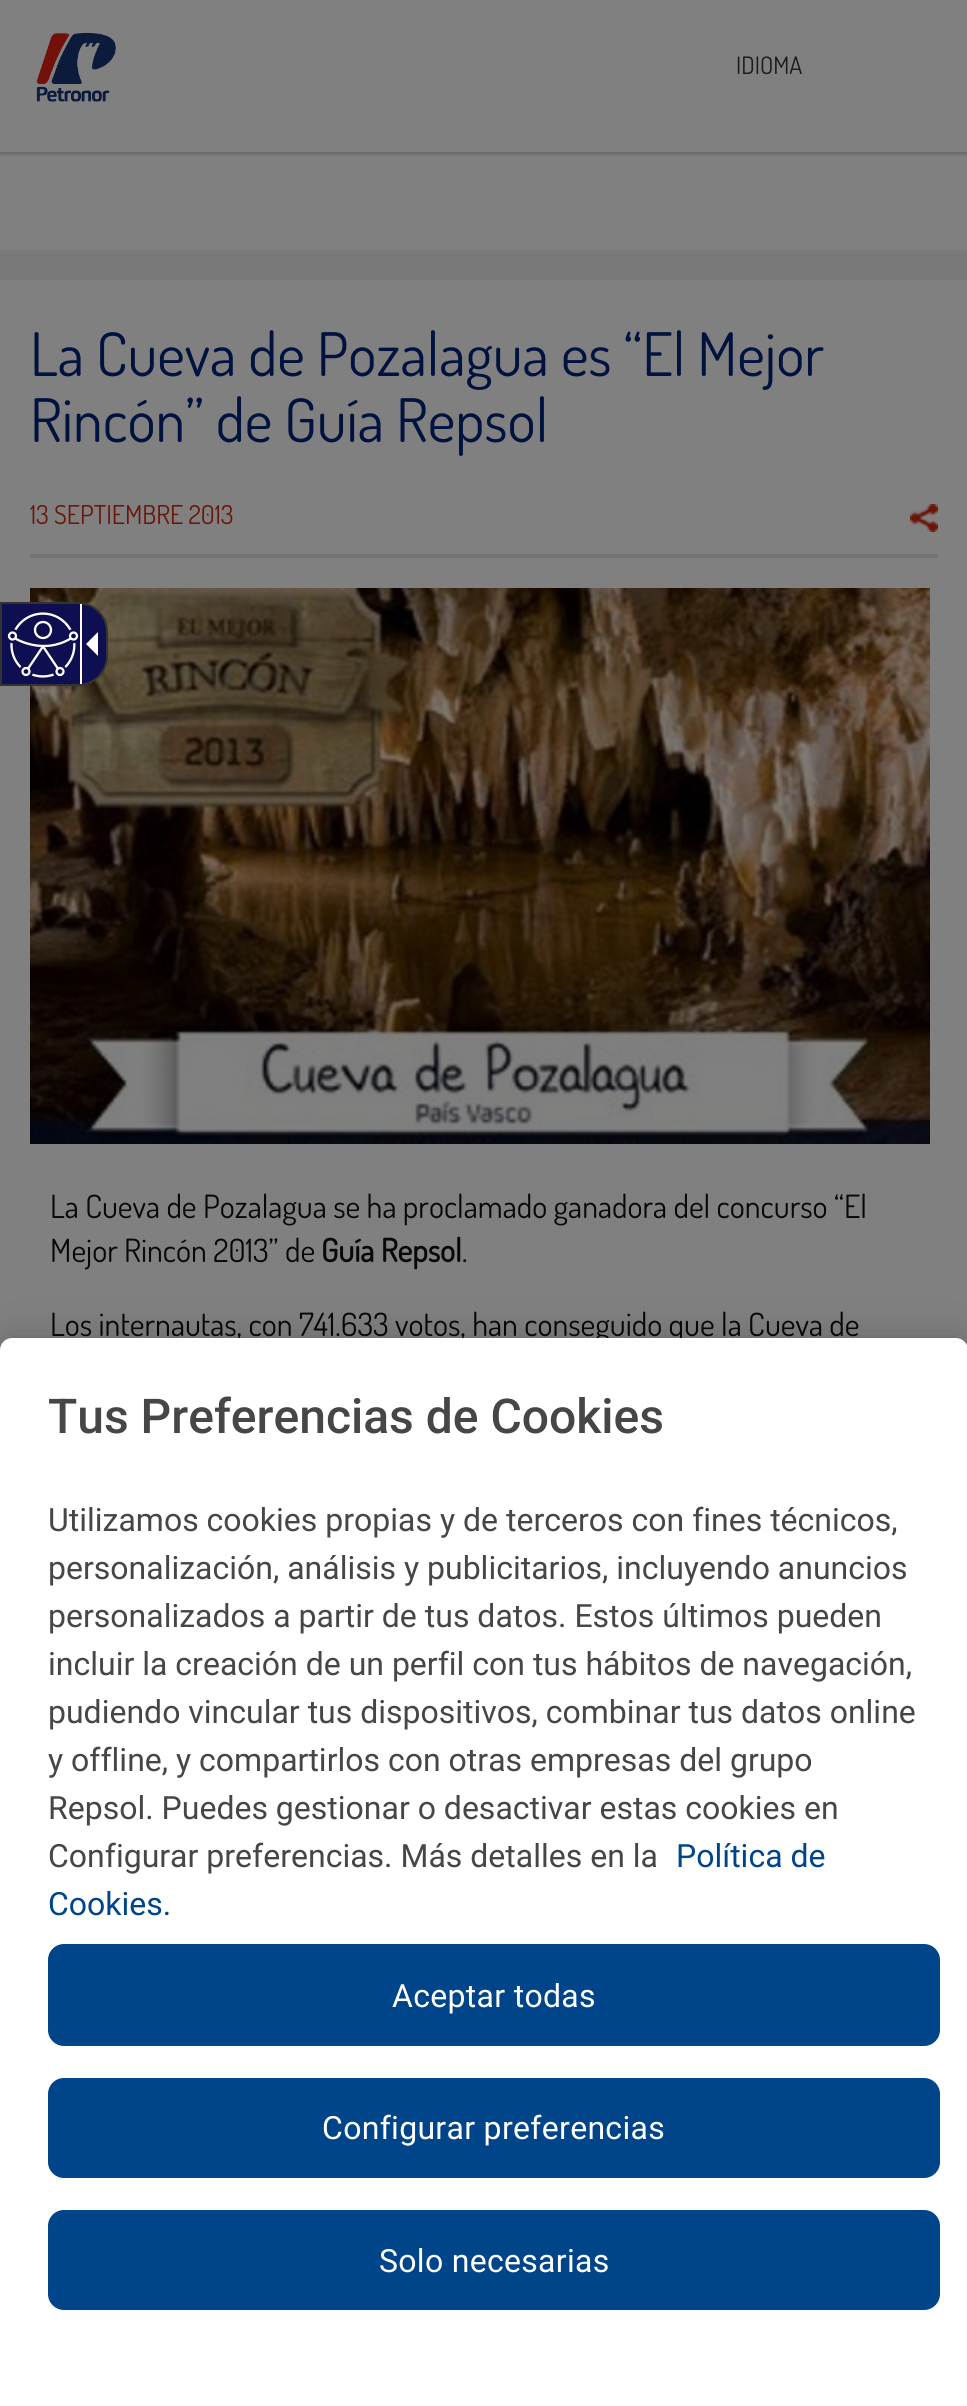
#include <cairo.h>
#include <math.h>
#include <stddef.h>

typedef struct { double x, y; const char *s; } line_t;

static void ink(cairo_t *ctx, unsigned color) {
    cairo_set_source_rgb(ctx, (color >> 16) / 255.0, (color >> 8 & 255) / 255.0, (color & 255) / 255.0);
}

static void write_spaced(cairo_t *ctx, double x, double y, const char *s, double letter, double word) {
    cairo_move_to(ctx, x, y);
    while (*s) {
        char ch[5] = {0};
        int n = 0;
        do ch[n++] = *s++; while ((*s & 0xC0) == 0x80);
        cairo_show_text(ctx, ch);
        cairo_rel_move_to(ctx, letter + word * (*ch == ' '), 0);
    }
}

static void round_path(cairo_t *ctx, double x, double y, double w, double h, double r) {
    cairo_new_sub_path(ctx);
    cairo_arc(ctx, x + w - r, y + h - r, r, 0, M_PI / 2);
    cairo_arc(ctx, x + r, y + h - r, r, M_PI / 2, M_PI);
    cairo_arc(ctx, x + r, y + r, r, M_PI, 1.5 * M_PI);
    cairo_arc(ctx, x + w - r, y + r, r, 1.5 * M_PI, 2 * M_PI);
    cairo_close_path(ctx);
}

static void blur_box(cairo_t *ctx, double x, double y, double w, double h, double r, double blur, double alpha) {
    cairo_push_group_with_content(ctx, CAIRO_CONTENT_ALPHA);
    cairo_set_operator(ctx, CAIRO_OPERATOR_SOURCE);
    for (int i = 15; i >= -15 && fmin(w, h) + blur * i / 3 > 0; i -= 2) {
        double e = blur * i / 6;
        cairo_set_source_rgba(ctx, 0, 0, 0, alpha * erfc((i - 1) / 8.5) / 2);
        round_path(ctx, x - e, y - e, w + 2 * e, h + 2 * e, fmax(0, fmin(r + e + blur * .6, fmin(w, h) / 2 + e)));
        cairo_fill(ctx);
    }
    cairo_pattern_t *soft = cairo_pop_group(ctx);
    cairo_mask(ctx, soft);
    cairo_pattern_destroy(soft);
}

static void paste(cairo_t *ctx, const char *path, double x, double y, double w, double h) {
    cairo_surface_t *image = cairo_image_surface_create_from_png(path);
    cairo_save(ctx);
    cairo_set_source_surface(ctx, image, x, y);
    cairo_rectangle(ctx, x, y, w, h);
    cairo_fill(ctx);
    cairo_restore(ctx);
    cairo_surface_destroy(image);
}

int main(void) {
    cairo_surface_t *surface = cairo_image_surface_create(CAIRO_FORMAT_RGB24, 967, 2406);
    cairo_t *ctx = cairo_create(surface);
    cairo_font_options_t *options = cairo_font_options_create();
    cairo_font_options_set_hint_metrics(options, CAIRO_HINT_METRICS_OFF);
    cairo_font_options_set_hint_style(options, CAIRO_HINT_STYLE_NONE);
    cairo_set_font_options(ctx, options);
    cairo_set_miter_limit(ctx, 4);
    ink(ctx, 0x808080);
    cairo_paint(ctx);
    cairo_save(ctx);
    cairo_rectangle(ctx, 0, 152, 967, 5);
    cairo_clip(ctx);
    ink(ctx, 0x1E2022);
    blur_box(ctx, 0, 2, 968, 152, 0, 2, 0.3);
    cairo_restore(ctx);
    paste(ctx, "media/1.png", 36, 32, 80, 70);
    cairo_select_font_face(ctx, "Dosis", CAIRO_FONT_SLANT_NORMAL, CAIRO_FONT_WEIGHT_NORMAL);
    cairo_set_font_size(ctx, 24);
    ink(ctx, 0x1A1A1A);
    cairo_move_to(ctx, 736, 74);
    cairo_show_text(ctx, "IDIOMA");
    ink(ctx, 0x797979);
    cairo_rectangle(ctx, 0, 250, 967, 30);
    cairo_fill(ctx);
    cairo_set_font_size(ctx, 60);
    ink(ctx, 0x01123F);
    cairo_move_to(ctx, 30, 376);
    cairo_show_text(ctx, "La Cueva de Pozalagua es “El Mejor");
    cairo_move_to(ctx, 30, 442);
    cairo_show_text(ctx, "Rincón” de Guía Repsol");
    paste(ctx, "media/2.png", 30, 554, 908, 4);
    cairo_set_font_size(ctx, 26);
    ink(ctx, 0x6A1709);
    cairo_move_to(ctx, 30, 524);
    cairo_show_text(ctx, "13 SEPTIEMBRE 2013");
    paste(ctx, "media/3.png", 910, 504, 28, 28);
    paste(ctx, "media/4.png", 30, 588, 900, 556);
    cairo_set_font_size(ctx, 32);
    ink(ctx, 0x090808);
    cairo_move_to(ctx, 50, 1218);
    cairo_show_text(ctx, "La Cueva de Pozalagua se ha proclamado ganadora del concurso “El");
    cairo_move_to(ctx, 50, 1262);
    cairo_show_text(ctx, "Mejor Rincón 2013” de");
    cairo_select_font_face(ctx, "Dosis", CAIRO_FONT_SLANT_NORMAL, CAIRO_FONT_WEIGHT_BOLD);
    cairo_move_to(ctx, 321, 1262);
    cairo_show_text(ctx, "Guía Repsol");
    cairo_select_font_face(ctx, "Dosis", CAIRO_FONT_SLANT_NORMAL, CAIRO_FONT_WEIGHT_NORMAL);
    cairo_move_to(ctx, 462, 1262);
    cairo_show_text(ctx, ".");
    cairo_move_to(ctx, 50, 1336);
    cairo_show_text(ctx, "Los internautas, con 741.633 votos, han conseguido que la Cueva de");
    ink(ctx, 0x0E0F51);
    cairo_new_path(ctx);
    cairo_move_to(ctx, 1, 603);
    cairo_line_to(ctx, 78, 603);
    cairo_curve_to(ctx, 94, 603, 107, 616, 107, 632);
    cairo_line_to(ctx, 107, 656);
    cairo_curve_to(ctx, 107, 672, 94, 685, 78, 685);
    cairo_line_to(ctx, 1, 685);
    cairo_close_path(ctx);
    cairo_fill_preserve(ctx);
    ink(ctx, 0x333333);
    cairo_stroke(ctx);
    ink(ctx, 0xFFFFFF);
    cairo_rectangle(ctx, 80, 604, 2, 80);
    cairo_fill(ctx);
    paste(ctx, "media/5.png", 7, 612, 72, 66);
    cairo_new_path(ctx);
    cairo_move_to(ctx, 98, 632);
    cairo_line_to(ctx, 98, 656);
    cairo_line_to(ctx, 86, 644);
    cairo_close_path(ctx);
    cairo_fill(ctx);
    ink(ctx, 0x000000);
    blur_box(ctx, 0, 1338, 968, 1068, 12, 18, 0.2);
    ink(ctx, 0xFFFFFF);
    cairo_new_path(ctx);
    cairo_move_to(ctx, 12, 1338);
    cairo_line_to(ctx, 956, 1338);
    cairo_curve_to(ctx, 962.5, 1338, 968, 1343.5, 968, 1350);
    cairo_line_to(ctx, 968, 2406);
    cairo_line_to(ctx, 0, 2406);
    cairo_line_to(ctx, 0, 1350);
    cairo_curve_to(ctx, 0, 1343.5, 5.5, 1338, 12, 1338);
    cairo_close_path(ctx);
    cairo_fill(ctx);
    cairo_select_font_face(ctx, "Roboto Medium", CAIRO_FONT_SLANT_NORMAL, CAIRO_FONT_WEIGHT_NORMAL);
    cairo_set_font_size(ctx, 48);
    ink(ctx, 0x464646);
    cairo_move_to(ctx, 48, 1433);
    cairo_show_text(ctx, "Tus Preferencias de Cookies");
    cairo_select_font_face(ctx, "Roboto", CAIRO_FONT_SLANT_NORMAL, CAIRO_FONT_WEIGHT_NORMAL);
    cairo_set_font_size(ctx, 32);
    {
        static const line_t items[] = {
            {48, 1531, "Utilizamos cookies propias y de terceros con fines técnicos,"},
            {48, 1579, "personalización, análisis y publicitarios, incluyendo anuncios"},
            {48, 1627, "personalizados a partir de tus datos. Estos últimos pueden"},
            {48, 1675, "incluir la creación de un perfil con tus hábitos de navegación,"},
            {48, 1723, "pudiendo vincular tus dispositivos, combinar tus datos online"},
            {48, 1771, "y offline, y compartirlos con otras empresas del grupo"},
            {48, 1819, "Repsol. Puedes gestionar o desactivar estas cookies en"},
            {48, 1867, "Configurar preferencias. Más detalles en la"},
        };
        for (size_t i = 0; i < sizeof items / sizeof *items; i++) {
            cairo_move_to(ctx, items[i].x, items[i].y);
            cairo_show_text(ctx, items[i].s);
        }
    }
    ink(ctx, 0x004489);
    cairo_move_to(ctx, 676, 1867);
    cairo_show_text(ctx, "Política de");
    cairo_move_to(ctx, 48, 1915);
    cairo_show_text(ctx, "Cookies.");
    round_path(ctx, 48, 1944, 892, 102, 16);
    cairo_fill(ctx);
    ink(ctx, 0xFFFFFF);
    write_spaced(ctx, 392, 2007, "Aceptar todas", 0.3, 0);
    ink(ctx, 0x004489);
    round_path(ctx, 48, 2078, 892, 100, 16);
    cairo_fill(ctx);
    ink(ctx, 0xFFFFFF);
    write_spaced(ctx, 322, 2139, "Configurar preferencias", 0.3, 0);
    ink(ctx, 0x004489);
    round_path(ctx, 48, 2210, 892, 100, 16);
    cairo_fill(ctx);
    ink(ctx, 0xFFFFFF);
    write_spaced(ctx, 379, 2272, "Solo necesarias", 0.3, 0);
    cairo_surface_write_to_png(surface, "image.png");
    cairo_font_options_destroy(options);
    cairo_destroy(ctx);
    cairo_surface_destroy(surface);
    return 0;
}
